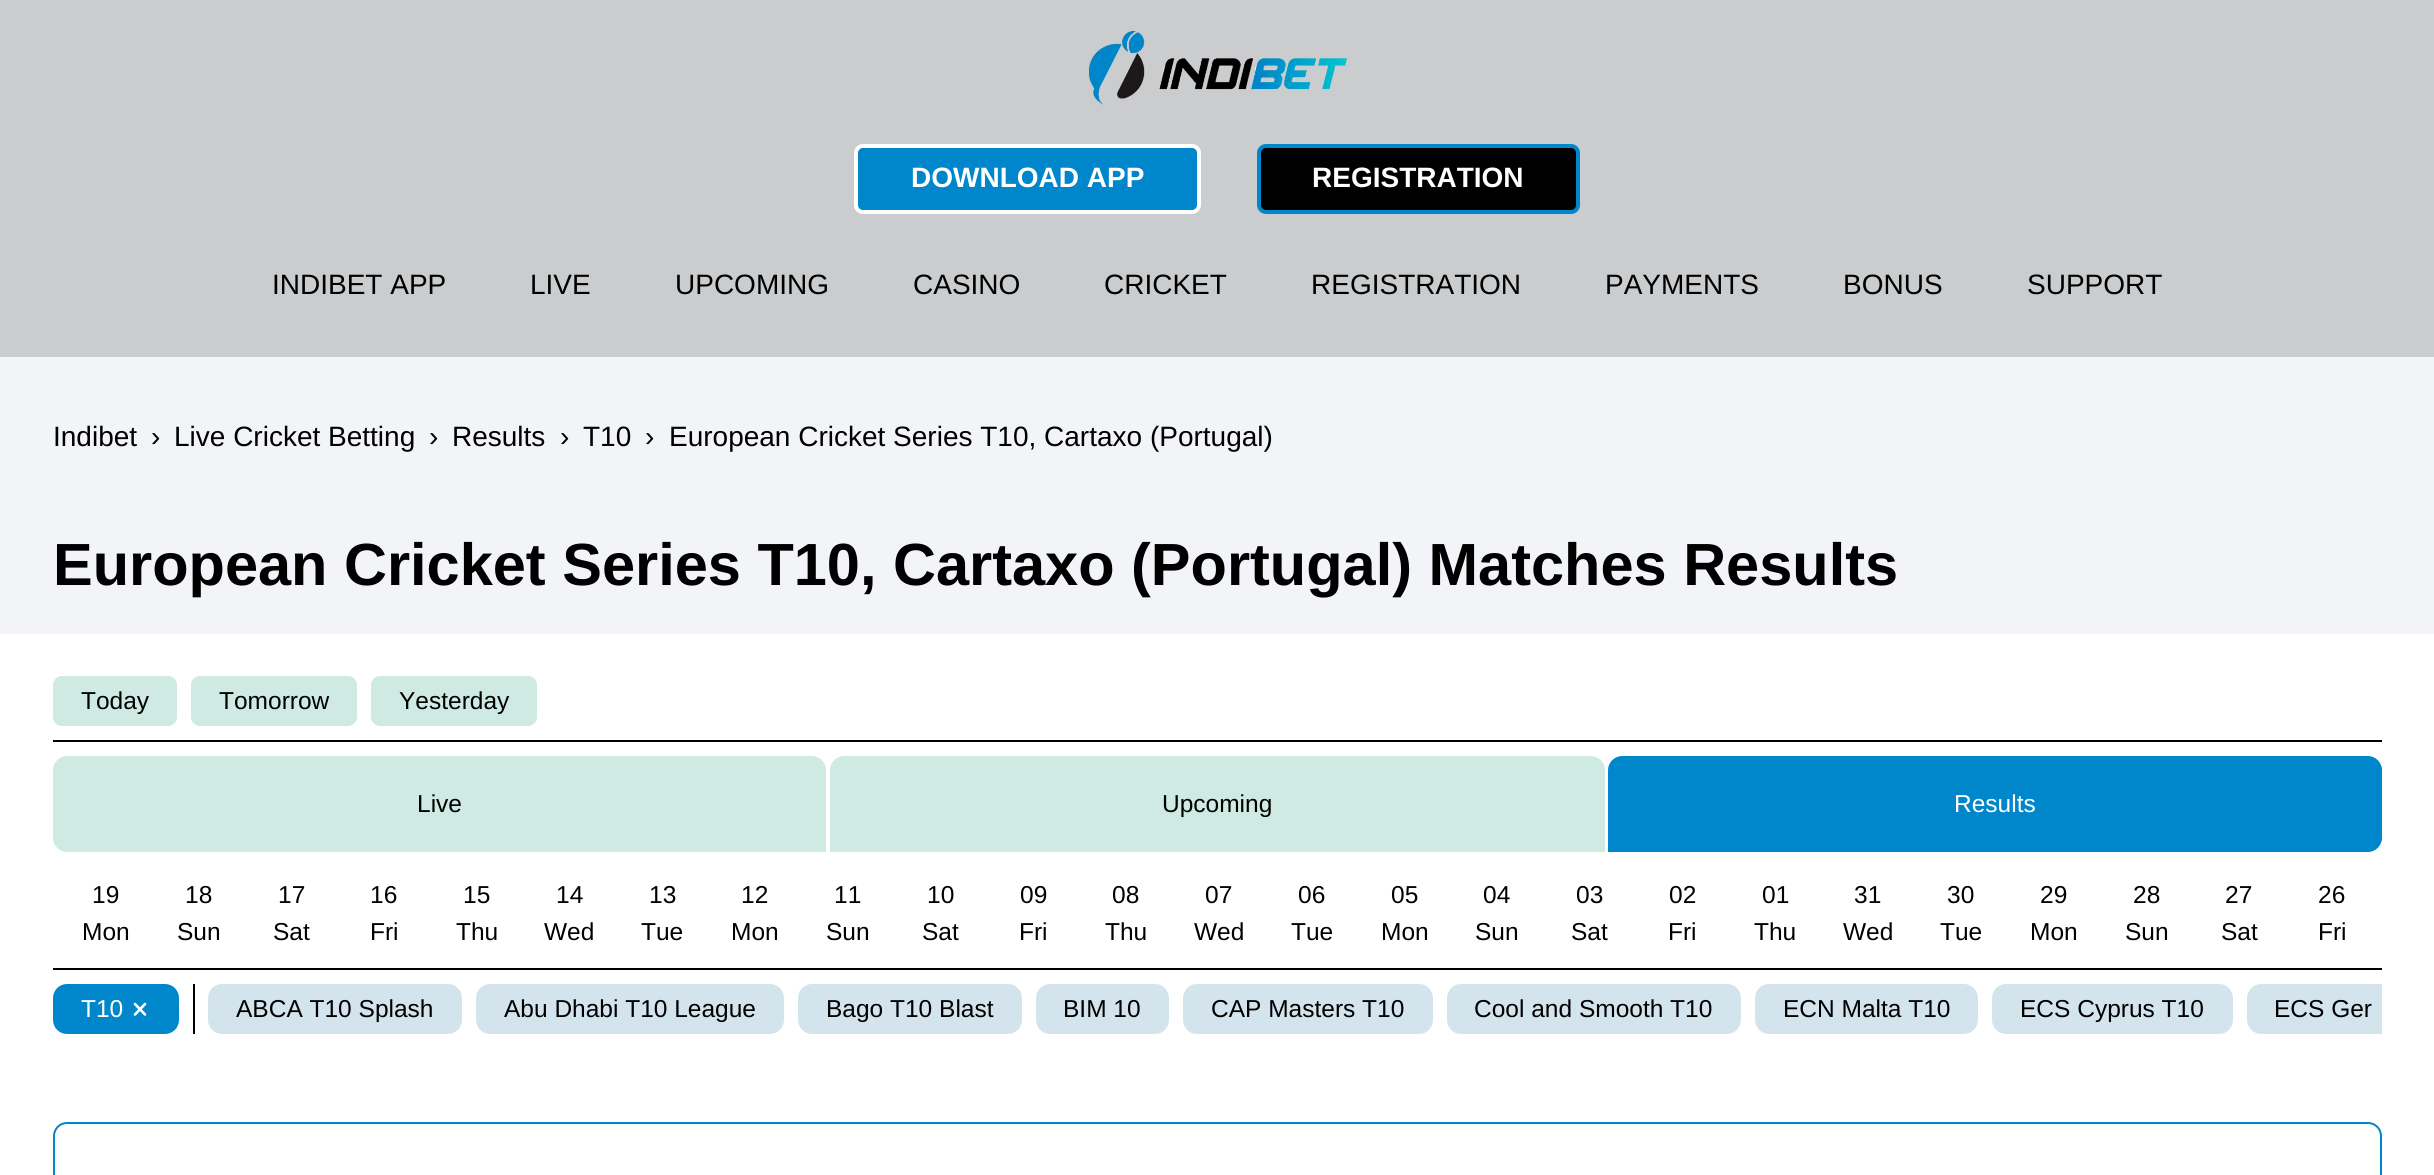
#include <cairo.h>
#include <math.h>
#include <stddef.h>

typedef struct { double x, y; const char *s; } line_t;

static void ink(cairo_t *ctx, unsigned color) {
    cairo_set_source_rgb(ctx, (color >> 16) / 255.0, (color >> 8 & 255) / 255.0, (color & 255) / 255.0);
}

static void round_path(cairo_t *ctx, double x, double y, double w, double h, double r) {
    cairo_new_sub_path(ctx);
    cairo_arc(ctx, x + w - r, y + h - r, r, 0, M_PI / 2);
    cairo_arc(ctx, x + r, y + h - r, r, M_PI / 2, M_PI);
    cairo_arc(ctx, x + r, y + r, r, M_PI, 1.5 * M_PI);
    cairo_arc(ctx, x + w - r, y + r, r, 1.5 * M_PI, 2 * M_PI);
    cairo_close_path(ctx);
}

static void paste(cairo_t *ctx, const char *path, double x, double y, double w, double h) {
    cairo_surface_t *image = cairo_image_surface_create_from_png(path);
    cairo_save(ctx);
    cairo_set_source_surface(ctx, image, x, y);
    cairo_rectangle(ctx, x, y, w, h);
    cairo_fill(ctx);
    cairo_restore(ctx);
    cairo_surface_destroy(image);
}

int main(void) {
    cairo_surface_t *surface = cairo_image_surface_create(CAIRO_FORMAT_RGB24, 2434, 1175);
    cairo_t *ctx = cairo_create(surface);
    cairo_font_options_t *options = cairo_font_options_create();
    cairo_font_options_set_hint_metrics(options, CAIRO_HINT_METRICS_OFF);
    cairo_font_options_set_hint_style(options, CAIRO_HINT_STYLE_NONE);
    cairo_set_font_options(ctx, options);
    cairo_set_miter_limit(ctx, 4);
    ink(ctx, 0xFFFFFF);
    cairo_paint(ctx);
    ink(ctx, 0xCACCCE);
    cairo_rectangle(ctx, 0, 0, 2434, 357);
    cairo_fill(ctx);
    paste(ctx, "media/1.png", 1089, 31, 258, 74);
    ink(ctx, 0x0086CA);
    round_path(ctx, 856, 146, 343, 66, 7);
    cairo_fill_preserve(ctx);
    ink(ctx, 0xFFFFFF);
    cairo_set_line_width(ctx, 4);
    cairo_stroke(ctx);
    cairo_select_font_face(ctx, "Liberation Sans", CAIRO_FONT_SLANT_NORMAL, CAIRO_FONT_WEIGHT_BOLD);
    cairo_set_font_size(ctx, 28);
    cairo_move_to(ctx, 911, 187);
    cairo_show_text(ctx, "DOWNLOAD APP");
    ink(ctx, 0x000000);
    round_path(ctx, 1259, 146, 319, 66, 7);
    cairo_fill_preserve(ctx);
    ink(ctx, 0x0086CA);
    cairo_stroke(ctx);
    ink(ctx, 0xFFFFFF);
    cairo_move_to(ctx, 1312, 187);
    cairo_show_text(ctx, "REGISTRATION");
    cairo_select_font_face(ctx, "Liberation Sans", CAIRO_FONT_SLANT_NORMAL, CAIRO_FONT_WEIGHT_NORMAL);
    ink(ctx, 0x000000);
    {
        static const line_t items[] = {
            {272, 294, "INDIBET APP"},
            {530, 294, "LIVE"},
            {675, 294, "UPCOMING"},
            {913, 294, "CASINO"},
            {1104, 294, "CRICKET"},
            {1311, 294, "REGISTRATION"},
            {1605, 294, "PAYMENTS"},
            {1843, 294, "BONUS"},
            {2027, 294, "SUPPORT"},
        };
        for (size_t i = 0; i < sizeof items / sizeof *items; i++) {
            cairo_move_to(ctx, items[i].x, items[i].y);
            cairo_show_text(ctx, items[i].s);
        }
    }
    ink(ctx, 0xF2F4F7);
    cairo_rectangle(ctx, 0, 357, 2434, 277);
    cairo_fill(ctx);
    ink(ctx, 0x000000);
    {
        static const line_t items[] = {
            {53, 446, "Indibet"},
            {151, 446, "›"},
            {174, 446, "Live Cricket Betting"},
            {429, 446, "›"},
            {452, 446, "Results"},
            {560, 446, "›"},
            {583, 446, "T10"},
            {645, 446, "›"},
            {669, 446, "European Cricket Series T10, Cartaxo (Portugal)"},
        };
        for (size_t i = 0; i < sizeof items / sizeof *items; i++) {
            cairo_move_to(ctx, items[i].x, items[i].y);
            cairo_show_text(ctx, items[i].s);
        }
    }
    cairo_select_font_face(ctx, "Liberation Sans", CAIRO_FONT_SLANT_NORMAL, CAIRO_FONT_WEIGHT_BOLD);
    cairo_set_font_size(ctx, 59.5);
    cairo_move_to(ctx, 53, 585);
    cairo_show_text(ctx, "European Cricket Series T10, Cartaxo (Portugal) Matches Results");
    cairo_rectangle(ctx, 53, 740, 2329, 2);
    cairo_fill(ctx);
    ink(ctx, 0xCEEAE3);
    round_path(ctx, 53, 676, 124, 50, 9);
    cairo_fill(ctx);
    cairo_select_font_face(ctx, "Liberation Sans", CAIRO_FONT_SLANT_NORMAL, CAIRO_FONT_WEIGHT_NORMAL);
    cairo_set_font_size(ctx, 24.5);
    ink(ctx, 0x000000);
    cairo_move_to(ctx, 81, 709);
    cairo_show_text(ctx, "Today");
    ink(ctx, 0xCEEAE3);
    round_path(ctx, 191, 676, 166, 50, 9);
    cairo_fill(ctx);
    ink(ctx, 0x000000);
    cairo_move_to(ctx, 219, 709);
    cairo_show_text(ctx, "Tomorrow");
    ink(ctx, 0xCEEAE3);
    round_path(ctx, 371, 676, 166, 50, 9);
    cairo_fill(ctx);
    ink(ctx, 0x000000);
    cairo_move_to(ctx, 399, 709);
    cairo_show_text(ctx, "Yesterday");
    ink(ctx, 0xCEEAE3);
    cairo_new_path(ctx);
    cairo_move_to(ctx, 67, 756);
    cairo_line_to(ctx, 812, 756);
    cairo_curve_to(ctx, 819.5, 756, 826, 762.5, 826, 770);
    cairo_line_to(ctx, 826, 852);
    cairo_line_to(ctx, 67, 852);
    cairo_curve_to(ctx, 59.5, 852, 53, 845.5, 53, 838);
    cairo_line_to(ctx, 53, 770);
    cairo_curve_to(ctx, 53, 762.5, 59.5, 756, 67, 756);
    cairo_close_path(ctx);
    cairo_fill(ctx);
    ink(ctx, 0x000000);
    cairo_move_to(ctx, 417, 812);
    cairo_show_text(ctx, "Live");
    ink(ctx, 0xCEEAE3);
    cairo_new_path(ctx);
    cairo_move_to(ctx, 844, 756);
    cairo_line_to(ctx, 1591, 756);
    cairo_curve_to(ctx, 1598.5, 756, 1605, 762.5, 1605, 770);
    cairo_line_to(ctx, 1605, 852);
    cairo_line_to(ctx, 830, 852);
    cairo_line_to(ctx, 830, 770);
    cairo_curve_to(ctx, 830, 762.5, 836.5, 756, 844, 756);
    cairo_close_path(ctx);
    cairo_fill(ctx);
    ink(ctx, 0x000000);
    cairo_move_to(ctx, 1162, 812);
    cairo_show_text(ctx, "Upcoming");
    ink(ctx, 0x0086CA);
    cairo_new_path(ctx);
    cairo_move_to(ctx, 1622, 756);
    cairo_line_to(ctx, 2368, 756);
    cairo_curve_to(ctx, 2375.5, 756, 2382, 762.5, 2382, 770);
    cairo_line_to(ctx, 2382, 838);
    cairo_curve_to(ctx, 2382, 845.5, 2375.5, 852, 2368, 852);
    cairo_line_to(ctx, 1608, 852);
    cairo_line_to(ctx, 1608, 770);
    cairo_curve_to(ctx, 1608, 762.5, 1614.5, 756, 1622, 756);
    cairo_close_path(ctx);
    cairo_fill(ctx);
    ink(ctx, 0xFFFFFF);
    cairo_move_to(ctx, 1954, 812);
    cairo_show_text(ctx, "Results");
    ink(ctx, 0x000000);
    cairo_rectangle(ctx, 53, 968, 2329, 2);
    cairo_fill(ctx);
    {
        static const line_t items[] = {
            {92, 903, "19"},
            {82, 940, "Mon"},
            {185, 903, "18"},
            {177, 940, "Sun"},
            {278, 903, "17"},
            {273, 940, "Sat"},
            {370, 903, "16"},
            {370, 940, "Fri"},
            {463, 903, "15"},
            {456, 940, "Thu"},
            {556, 903, "14"},
            {544, 940, "Wed"},
            {649, 903, "13"},
            {641, 940, "Tue"},
            {741, 903, "12"},
            {731, 940, "Mon"},
            {834, 903, "11"},
            {826, 940, "Sun"},
            {927, 903, "10"},
            {922, 940, "Sat"},
            {1020, 903, "09"},
            {1019, 940, "Fri"},
            {1112, 903, "08"},
            {1105, 940, "Thu"},
            {1205, 903, "07"},
            {1194, 940, "Wed"},
            {1298, 903, "06"},
            {1291, 940, "Tue"},
            {1391, 903, "05"},
            {1381, 940, "Mon"},
            {1483, 903, "04"},
            {1475, 940, "Sun"},
            {1576, 903, "03"},
            {1571, 940, "Sat"},
            {1669, 903, "02"},
            {1668, 940, "Fri"},
            {1762, 903, "01"},
            {1754, 940, "Thu"},
            {1854, 903, "31"},
            {1843, 940, "Wed"},
            {1947, 903, "30"},
            {1940, 940, "Tue"},
            {2040, 903, "29"},
            {2030, 940, "Mon"},
            {2133, 903, "28"},
            {2125, 940, "Sun"},
            {2225, 903, "27"},
            {2221, 940, "Sat"},
            {2318, 903, "26"},
            {2318, 940, "Fri"},
        };
        for (size_t i = 0; i < sizeof items / sizeof *items; i++) {
            cairo_move_to(ctx, items[i].x, items[i].y);
            cairo_show_text(ctx, items[i].s);
        }
    }
    ink(ctx, 0x0086CA);
    round_path(ctx, 53, 984, 126, 50, 14);
    cairo_fill(ctx);
    ink(ctx, 0xFFFFFF);
    cairo_move_to(ctx, 81, 1017);
    cairo_show_text(ctx, "T10");
    cairo_new_path(ctx);
    cairo_move_to(ctx, 145, 1004);
    cairo_line_to(ctx, 135, 1014.5);
    cairo_move_to(ctx, 135, 1004);
    cairo_line_to(ctx, 145, 1014.5);
    cairo_set_line_width(ctx, 2.6);
    cairo_set_line_cap(ctx, CAIRO_LINE_CAP_ROUND);
    cairo_set_line_join(ctx, CAIRO_LINE_JOIN_ROUND);
    cairo_stroke(ctx);
    ink(ctx, 0x000000);
    cairo_rectangle(ctx, 193, 984, 2, 50);
    cairo_fill(ctx);
    ink(ctx, 0xD3E4ED);
    round_path(ctx, 208, 984, 254, 50, 14);
    cairo_fill(ctx);
    ink(ctx, 0x000000);
    cairo_move_to(ctx, 236, 1017);
    cairo_show_text(ctx, "ABCA T10 Splash");
    ink(ctx, 0xD3E4ED);
    round_path(ctx, 476, 984, 308, 50, 14);
    cairo_fill(ctx);
    ink(ctx, 0x000000);
    cairo_move_to(ctx, 504, 1017);
    cairo_show_text(ctx, "Abu Dhabi T10 League");
    ink(ctx, 0xD3E4ED);
    round_path(ctx, 798, 984, 224, 50, 14);
    cairo_fill(ctx);
    ink(ctx, 0x000000);
    cairo_move_to(ctx, 826, 1017);
    cairo_show_text(ctx, "Bago T10 Blast");
    ink(ctx, 0xD3E4ED);
    round_path(ctx, 1036, 984, 133, 50, 14);
    cairo_fill(ctx);
    ink(ctx, 0x000000);
    cairo_move_to(ctx, 1063, 1017);
    cairo_show_text(ctx, "BIM 10");
    ink(ctx, 0xD3E4ED);
    round_path(ctx, 1183, 984, 250, 50, 14);
    cairo_fill(ctx);
    ink(ctx, 0x000000);
    cairo_move_to(ctx, 1211, 1017);
    cairo_show_text(ctx, "CAP Masters T10");
    ink(ctx, 0xD3E4ED);
    round_path(ctx, 1447, 984, 294, 50, 14);
    cairo_fill(ctx);
    ink(ctx, 0x000000);
    cairo_move_to(ctx, 1474, 1017);
    cairo_show_text(ctx, "Cool and Smooth T10");
    ink(ctx, 0xD3E4ED);
    round_path(ctx, 1755, 984, 223, 50, 14);
    cairo_fill(ctx);
    ink(ctx, 0x000000);
    cairo_move_to(ctx, 1783, 1017);
    cairo_show_text(ctx, "ECN Malta T10");
    ink(ctx, 0xD3E4ED);
    round_path(ctx, 1992, 984, 241, 50, 14);
    cairo_fill(ctx);
    ink(ctx, 0x000000);
    cairo_move_to(ctx, 2020, 1017);
    cairo_show_text(ctx, "ECS Cyprus T10");
    ink(ctx, 0xD3E4ED);
    cairo_new_path(ctx);
    cairo_move_to(ctx, 2261, 984);
    cairo_line_to(ctx, 2382, 984);
    cairo_line_to(ctx, 2382, 1034);
    cairo_line_to(ctx, 2261, 1034);
    cairo_curve_to(ctx, 2253.5, 1034, 2247, 1027.5, 2247, 1020);
    cairo_line_to(ctx, 2247, 998);
    cairo_curve_to(ctx, 2247, 990.5, 2253.5, 984, 2261, 984);
    cairo_close_path(ctx);
    cairo_fill(ctx);
    ink(ctx, 0x000000);
    cairo_move_to(ctx, 2274, 1017);
    cairo_show_text(ctx, "ECS Ger");
    round_path(ctx, 54, 1123, 2327, 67, 13);
    ink(ctx, 0x0086CA);
    cairo_set_line_width(ctx, 2);
    cairo_set_line_cap(ctx, CAIRO_LINE_CAP_BUTT);
    cairo_set_line_join(ctx, CAIRO_LINE_JOIN_MITER);
    cairo_stroke(ctx);
    cairo_surface_write_to_png(surface, "image.png");
    cairo_font_options_destroy(options);
    cairo_destroy(ctx);
    cairo_surface_destroy(surface);
    return 0;
}
